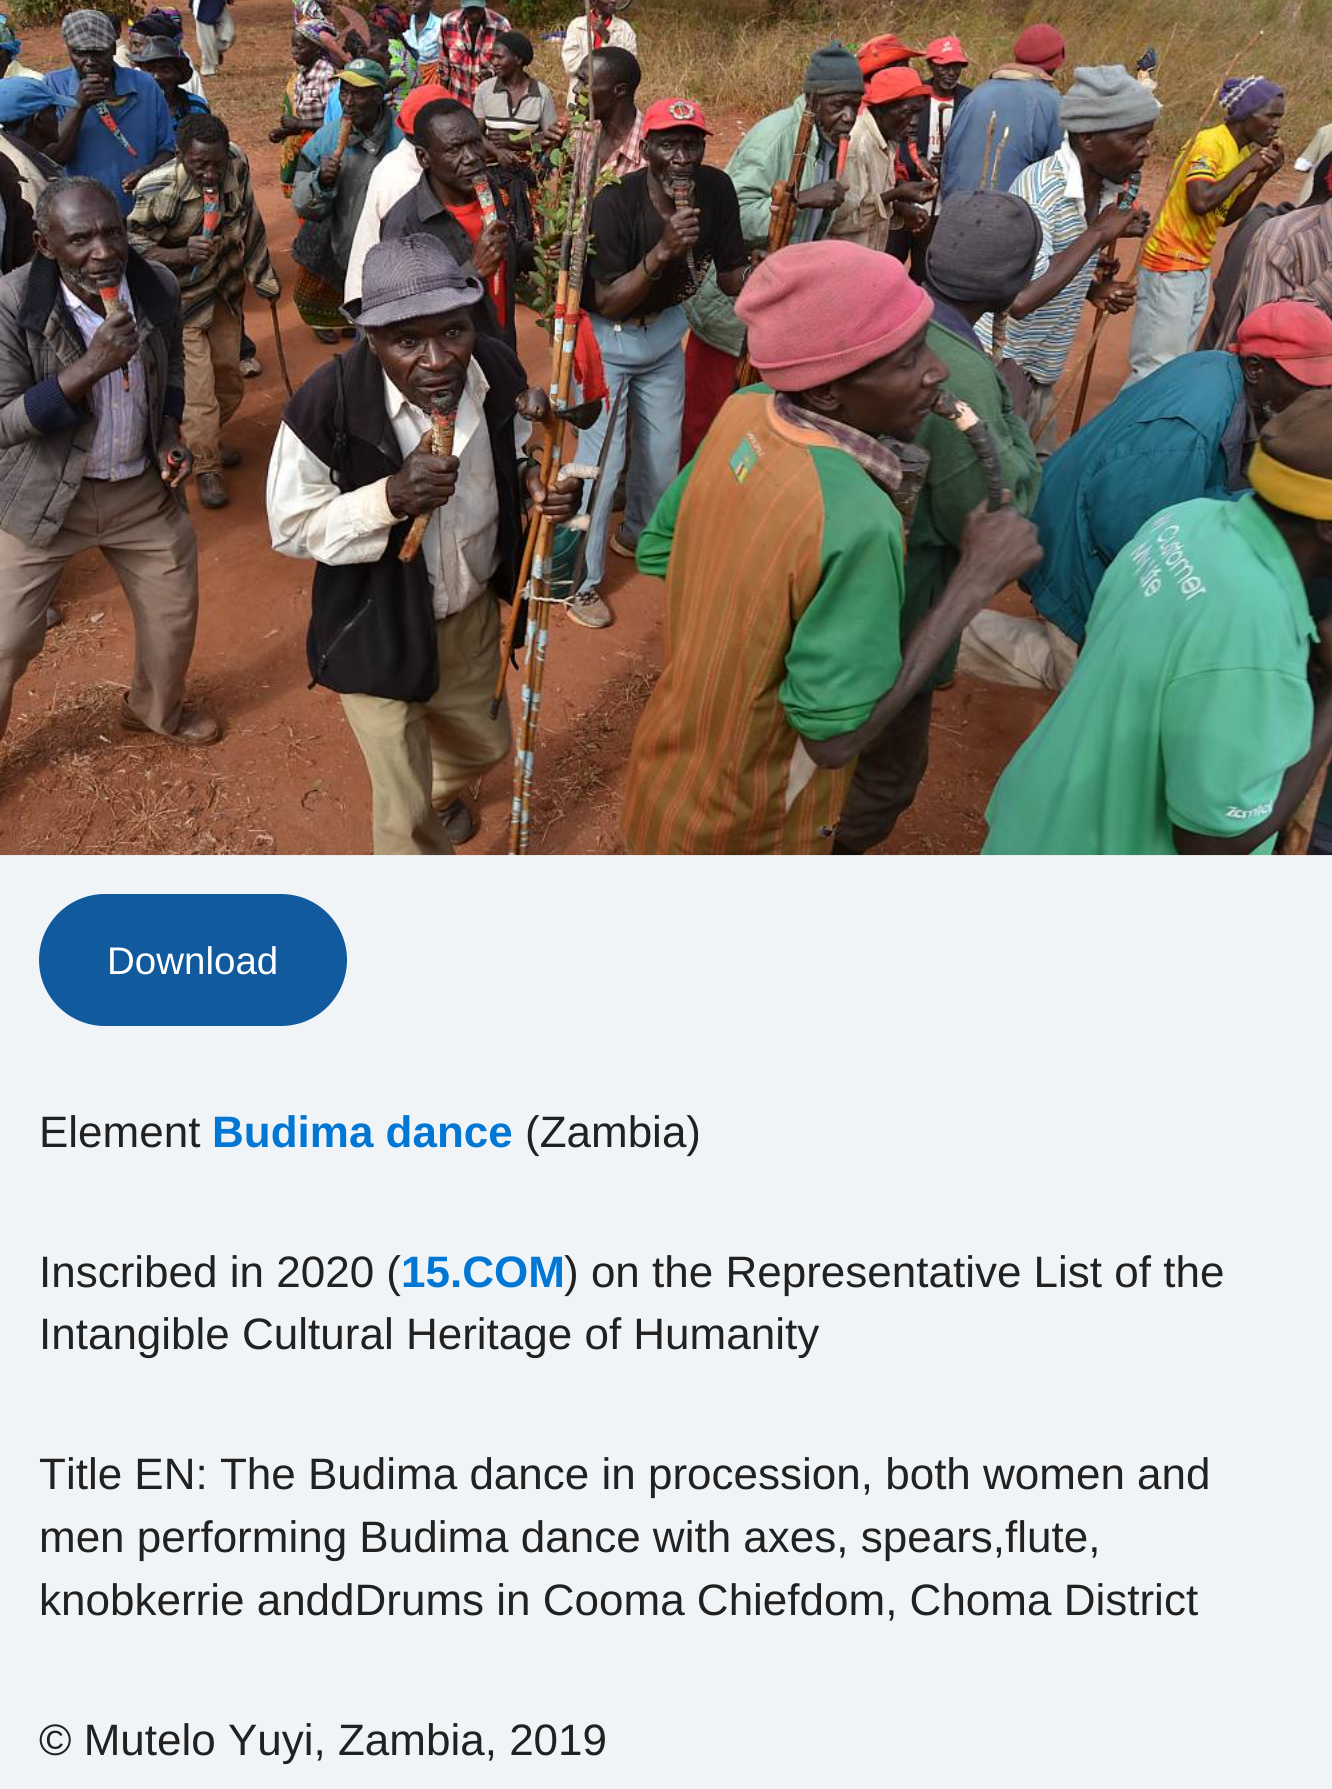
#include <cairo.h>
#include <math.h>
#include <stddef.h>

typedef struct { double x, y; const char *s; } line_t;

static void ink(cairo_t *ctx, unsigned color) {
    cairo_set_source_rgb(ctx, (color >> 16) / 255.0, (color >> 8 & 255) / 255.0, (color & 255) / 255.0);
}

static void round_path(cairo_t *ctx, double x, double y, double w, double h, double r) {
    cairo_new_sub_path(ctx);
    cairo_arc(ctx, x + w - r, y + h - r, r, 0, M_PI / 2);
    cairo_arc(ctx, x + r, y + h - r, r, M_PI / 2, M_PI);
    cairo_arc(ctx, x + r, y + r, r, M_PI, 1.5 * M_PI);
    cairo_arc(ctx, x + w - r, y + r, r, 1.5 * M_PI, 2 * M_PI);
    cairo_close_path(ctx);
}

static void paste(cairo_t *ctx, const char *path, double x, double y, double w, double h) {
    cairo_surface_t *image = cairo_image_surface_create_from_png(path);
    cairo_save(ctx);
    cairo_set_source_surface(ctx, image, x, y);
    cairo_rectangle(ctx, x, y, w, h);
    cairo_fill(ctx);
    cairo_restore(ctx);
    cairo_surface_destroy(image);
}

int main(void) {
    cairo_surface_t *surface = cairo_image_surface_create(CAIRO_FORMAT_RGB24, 1332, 1789);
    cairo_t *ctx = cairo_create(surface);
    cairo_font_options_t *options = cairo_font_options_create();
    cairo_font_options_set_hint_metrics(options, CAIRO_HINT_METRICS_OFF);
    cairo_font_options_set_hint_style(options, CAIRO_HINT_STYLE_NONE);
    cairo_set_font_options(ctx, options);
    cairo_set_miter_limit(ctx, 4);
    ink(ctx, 0xF1F4F6);
    cairo_paint(ctx);
    paste(ctx, "media/1.png", 0, 0, 1332, 856);
    ink(ctx, 0x115A9E);
    round_path(ctx, 39, 894, 308, 132, 66);
    cairo_fill(ctx);
    cairo_select_font_face(ctx, "Liberation Sans", CAIRO_FONT_SLANT_NORMAL, CAIRO_FONT_WEIGHT_NORMAL);
    cairo_set_font_size(ctx, 38.5);
    ink(ctx, 0xFFFFFF);
    cairo_move_to(ctx, 107, 974);
    cairo_show_text(ctx, "Download");
    cairo_set_font_size(ctx, 44);
    ink(ctx, 0x212121);
    cairo_move_to(ctx, 39, 1147);
    cairo_show_text(ctx, "Element");
    cairo_select_font_face(ctx, "Liberation Sans", CAIRO_FONT_SLANT_NORMAL, CAIRO_FONT_WEIGHT_BOLD);
    ink(ctx, 0x0077D4);
    cairo_move_to(ctx, 212, 1147);
    cairo_show_text(ctx, "Budima dance");
    cairo_select_font_face(ctx, "Liberation Sans", CAIRO_FONT_SLANT_NORMAL, CAIRO_FONT_WEIGHT_NORMAL);
    ink(ctx, 0x212121);
    cairo_move_to(ctx, 525, 1147);
    cairo_show_text(ctx, "(Zambia)");
    cairo_move_to(ctx, 39, 1287);
    cairo_show_text(ctx, "Inscribed in 2020 (");
    cairo_select_font_face(ctx, "Liberation Sans", CAIRO_FONT_SLANT_NORMAL, CAIRO_FONT_WEIGHT_BOLD);
    ink(ctx, 0x0077D4);
    cairo_move_to(ctx, 401, 1287);
    cairo_show_text(ctx, "15.COM");
    cairo_select_font_face(ctx, "Liberation Sans", CAIRO_FONT_SLANT_NORMAL, CAIRO_FONT_WEIGHT_NORMAL);
    ink(ctx, 0x212121);
    {
        static const line_t items[] = {
            {564, 1287, ") on the Representative List of the"},
            {39, 1349, "Intangible Cultural Heritage of Humanity"},
            {39, 1489, "Title EN: The Budima dance in procession, both women and"},
            {39, 1552, "men performing Budima dance with axes, spears,flute,"},
            {39, 1615, "knobkerrie anddDrums in Cooma Chiefdom, Choma District"},
            {39, 1755, "© Mutelo Yuyi, Zambia, 2019"},
        };
        for (size_t i = 0; i < sizeof items / sizeof *items; i++) {
            cairo_move_to(ctx, items[i].x, items[i].y);
            cairo_show_text(ctx, items[i].s);
        }
    }
    cairo_surface_write_to_png(surface, "image.png");
    cairo_font_options_destroy(options);
    cairo_destroy(ctx);
    cairo_surface_destroy(surface);
    return 0;
}
